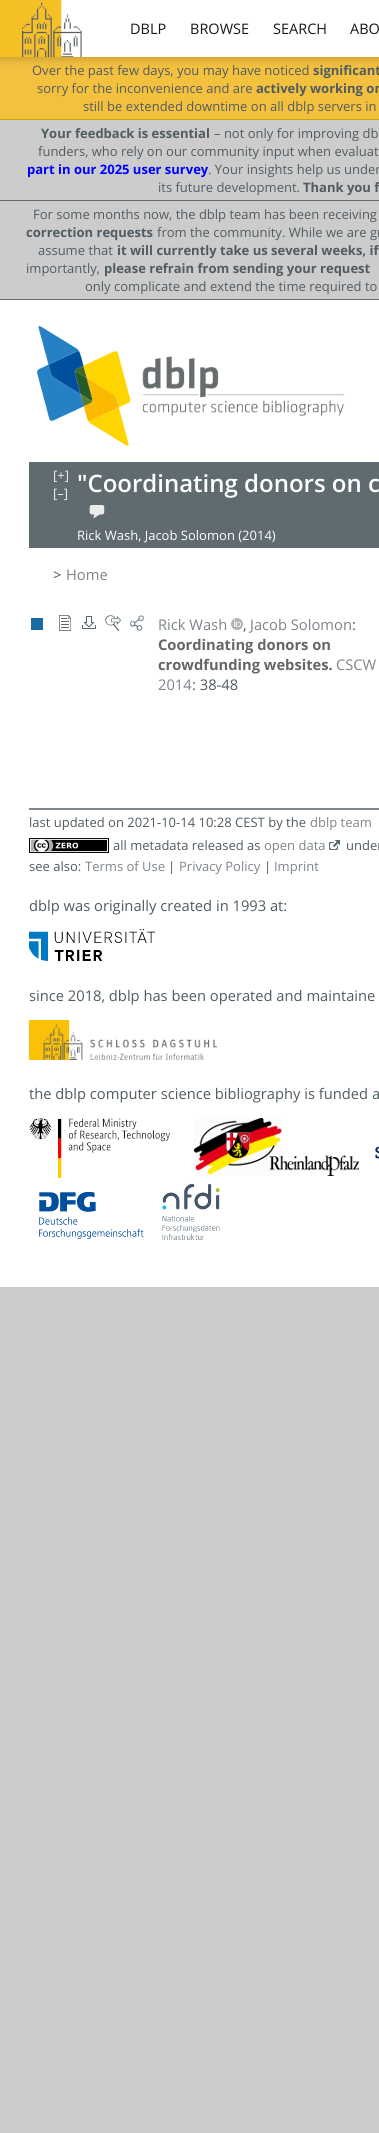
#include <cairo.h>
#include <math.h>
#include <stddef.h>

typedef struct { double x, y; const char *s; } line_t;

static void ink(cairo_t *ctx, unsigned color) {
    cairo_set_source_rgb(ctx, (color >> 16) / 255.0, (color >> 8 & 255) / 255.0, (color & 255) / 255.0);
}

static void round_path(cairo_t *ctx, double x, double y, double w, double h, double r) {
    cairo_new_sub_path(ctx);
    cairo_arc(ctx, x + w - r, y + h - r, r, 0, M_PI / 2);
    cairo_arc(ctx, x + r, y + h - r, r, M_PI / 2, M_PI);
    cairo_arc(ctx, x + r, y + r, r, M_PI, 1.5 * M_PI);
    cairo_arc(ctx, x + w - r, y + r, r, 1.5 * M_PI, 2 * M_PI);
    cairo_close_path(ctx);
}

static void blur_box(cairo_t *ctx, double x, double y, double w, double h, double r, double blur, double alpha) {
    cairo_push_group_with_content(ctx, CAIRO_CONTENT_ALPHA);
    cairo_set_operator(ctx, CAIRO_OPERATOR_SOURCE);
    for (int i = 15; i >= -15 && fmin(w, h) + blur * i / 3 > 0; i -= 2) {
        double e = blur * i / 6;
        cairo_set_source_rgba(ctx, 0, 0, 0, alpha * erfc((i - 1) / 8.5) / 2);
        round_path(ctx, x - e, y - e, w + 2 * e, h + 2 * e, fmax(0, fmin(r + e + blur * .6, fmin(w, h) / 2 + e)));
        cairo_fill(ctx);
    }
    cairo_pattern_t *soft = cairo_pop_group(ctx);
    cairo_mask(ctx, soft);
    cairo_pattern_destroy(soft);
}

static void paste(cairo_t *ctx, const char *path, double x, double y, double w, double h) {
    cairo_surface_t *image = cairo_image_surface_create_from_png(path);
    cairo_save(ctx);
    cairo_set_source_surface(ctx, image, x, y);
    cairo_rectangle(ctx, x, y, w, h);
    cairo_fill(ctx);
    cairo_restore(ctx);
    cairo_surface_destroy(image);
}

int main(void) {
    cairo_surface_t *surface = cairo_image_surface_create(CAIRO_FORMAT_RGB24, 379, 2133);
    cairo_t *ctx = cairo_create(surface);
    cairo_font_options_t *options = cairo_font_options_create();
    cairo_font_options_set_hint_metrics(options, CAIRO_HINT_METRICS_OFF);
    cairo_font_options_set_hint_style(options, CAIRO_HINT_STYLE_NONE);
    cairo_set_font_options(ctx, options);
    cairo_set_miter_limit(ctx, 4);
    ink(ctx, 0xCCCCCC);
    cairo_paint(ctx);
    ink(ctx, 0xF4C13F);
    cairo_rectangle(ctx, 0, 57, 379, 62);
    cairo_fill(ctx);
    ink(ctx, 0x000000);
    blur_box(ctx, 0, 2, 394, 57, 0, 5, 0.2);
    ink(ctx, 0xFFFFFF);
    cairo_rectangle(ctx, 82, 0, 297, 57);
    cairo_fill(ctx);
    paste(ctx, "media/1.png", 0, 0, 82, 57);
    cairo_select_font_face(ctx, "Open Sans", CAIRO_FONT_SLANT_NORMAL, CAIRO_FONT_WEIGHT_NORMAL);
    cairo_set_font_size(ctx, 14.5);
    ink(ctx, 0x16181B);
    {
        static const line_t items[] = {
            {130, 34, "DBLP"},
            {190, 34, "BROWSE"},
            {273, 34, "SEARCH"},
            {350, 34, "ABO"},
        };
        for (size_t i = 0; i < sizeof items / sizeof *items; i++) {
            cairo_move_to(ctx, items[i].x, items[i].y);
            cairo_show_text(ctx, items[i].s);
        }
    }
    ink(ctx, 0xBBAA00);
    cairo_rectangle(ctx, 0, 119, 379, 1);
    cairo_fill(ctx);
    cairo_set_font_size(ctx, 13);
    ink(ctx, 0x505B62);
    cairo_move_to(ctx, 32, 75);
    cairo_show_text(ctx, "Over the past few days, you may have noticed");
    cairo_select_font_face(ctx, "Open Sans", CAIRO_FONT_SLANT_NORMAL, CAIRO_FONT_WEIGHT_BOLD);
    cairo_move_to(ctx, 313, 75);
    cairo_show_text(ctx, "significant");
    cairo_select_font_face(ctx, "Open Sans", CAIRO_FONT_SLANT_NORMAL, CAIRO_FONT_WEIGHT_NORMAL);
    cairo_move_to(ctx, 37, 93);
    cairo_show_text(ctx, "sorry for the inconvenience and are");
    cairo_select_font_face(ctx, "Open Sans", CAIRO_FONT_SLANT_NORMAL, CAIRO_FONT_WEIGHT_BOLD);
    cairo_move_to(ctx, 256, 93);
    cairo_show_text(ctx, "actively working on");
    cairo_select_font_face(ctx, "Open Sans", CAIRO_FONT_SLANT_NORMAL, CAIRO_FONT_WEIGHT_NORMAL);
    cairo_move_to(ctx, 83, 111);
    cairo_show_text(ctx, "still be extended downtime on all dblp servers in");
    ink(ctx, 0x606B70);
    cairo_rectangle(ctx, 0, 200, 379, 1);
    cairo_fill(ctx);
    cairo_select_font_face(ctx, "Open Sans", CAIRO_FONT_SLANT_NORMAL, CAIRO_FONT_WEIGHT_BOLD);
    ink(ctx, 0x505B62);
    cairo_move_to(ctx, 41, 138);
    cairo_show_text(ctx, "Your feedback is essential");
    cairo_select_font_face(ctx, "Open Sans", CAIRO_FONT_SLANT_NORMAL, CAIRO_FONT_WEIGHT_NORMAL);
    cairo_move_to(ctx, 214, 138);
    cairo_show_text(ctx, "– not only for improving db");
    cairo_move_to(ctx, 38, 156);
    cairo_show_text(ctx, "funders, who rely on our community input when evaluat");
    cairo_select_font_face(ctx, "Open Sans", CAIRO_FONT_SLANT_NORMAL, CAIRO_FONT_WEIGHT_BOLD);
    ink(ctx, 0x0000FF);
    cairo_move_to(ctx, 27, 174);
    cairo_show_text(ctx, "part in our 2025 user survey");
    cairo_select_font_face(ctx, "Open Sans", CAIRO_FONT_SLANT_NORMAL, CAIRO_FONT_WEIGHT_NORMAL);
    ink(ctx, 0x505B62);
    cairo_move_to(ctx, 208, 174);
    cairo_show_text(ctx, ". Your insights help us under");
    cairo_move_to(ctx, 158, 192);
    cairo_show_text(ctx, "its future development.");
    cairo_select_font_face(ctx, "Open Sans", CAIRO_FONT_SLANT_NORMAL, CAIRO_FONT_WEIGHT_BOLD);
    cairo_move_to(ctx, 303, 192);
    cairo_show_text(ctx, "Thank you f");
    ink(ctx, 0x606B70);
    cairo_rectangle(ctx, 0, 299, 379, 1);
    cairo_fill(ctx);
    cairo_select_font_face(ctx, "Open Sans", CAIRO_FONT_SLANT_NORMAL, CAIRO_FONT_WEIGHT_NORMAL);
    ink(ctx, 0x505B62);
    cairo_move_to(ctx, 33, 219);
    cairo_show_text(ctx, "For some months now, the dblp team has been receiving");
    cairo_select_font_face(ctx, "Open Sans", CAIRO_FONT_SLANT_NORMAL, CAIRO_FONT_WEIGHT_BOLD);
    cairo_move_to(ctx, 26, 237);
    cairo_show_text(ctx, "correction requests");
    cairo_select_font_face(ctx, "Open Sans", CAIRO_FONT_SLANT_NORMAL, CAIRO_FONT_WEIGHT_NORMAL);
    cairo_move_to(ctx, 157, 237);
    cairo_show_text(ctx, "from the community. While we are gr");
    cairo_move_to(ctx, 38, 255);
    cairo_show_text(ctx, "assume that");
    cairo_select_font_face(ctx, "Open Sans", CAIRO_FONT_SLANT_NORMAL, CAIRO_FONT_WEIGHT_BOLD);
    cairo_move_to(ctx, 117, 255);
    cairo_show_text(ctx, "it will currently take us several weeks, if");
    cairo_select_font_face(ctx, "Open Sans", CAIRO_FONT_SLANT_NORMAL, CAIRO_FONT_WEIGHT_NORMAL);
    cairo_move_to(ctx, 26, 273);
    cairo_show_text(ctx, "importantly,");
    cairo_select_font_face(ctx, "Open Sans", CAIRO_FONT_SLANT_NORMAL, CAIRO_FONT_WEIGHT_BOLD);
    cairo_move_to(ctx, 104, 273);
    cairo_show_text(ctx, "please refrain from sending your request");
    cairo_select_font_face(ctx, "Open Sans", CAIRO_FONT_SLANT_NORMAL, CAIRO_FONT_WEIGHT_NORMAL);
    cairo_move_to(ctx, 85, 291);
    cairo_show_text(ctx, "only complicate and extend the time required to");
    ink(ctx, 0xFFFFFF);
    cairo_rectangle(ctx, 0, 300, 379, 987);
    cairo_fill(ctx);
    paste(ctx, "media/2.png", 37, 326, 308, 120);
    ink(ctx, 0x606B70);
    cairo_rectangle(ctx, 29, 462, 350, 86);
    cairo_fill(ctx);
    ink(ctx, 0xEBEBEB);
    cairo_move_to(ctx, 53, 480);
    cairo_show_text(ctx, "[+]");
    cairo_move_to(ctx, 53, 498);
    cairo_show_text(ctx, "[–]");
    cairo_select_font_face(ctx, "Open Sans SemiBold", CAIRO_FONT_SLANT_NORMAL, CAIRO_FONT_WEIGHT_NORMAL);
    cairo_set_font_size(ctx, 24);
    ink(ctx, 0xFFFFFF);
    cairo_move_to(ctx, 77, 492);
    cairo_show_text(ctx, "\"Coordinating donors on c");
    paste(ctx, "media/3.png", 89, 505, 16, 14);
    cairo_select_font_face(ctx, "Open Sans", CAIRO_FONT_SLANT_NORMAL, CAIRO_FONT_WEIGHT_NORMAL);
    cairo_set_font_size(ctx, 13);
    cairo_move_to(ctx, 77, 540);
    cairo_show_text(ctx, "Rick Wash, Jacob Solomon (2014)");
    cairo_set_font_size(ctx, 14.7);
    ink(ctx, 0x505B62);
    cairo_move_to(ctx, 53, 580);
    cairo_show_text(ctx, ">");
    ink(ctx, 0x7D848A);
    cairo_move_to(ctx, 66, 580);
    cairo_show_text(ctx, "Home");
    ink(ctx, 0x196CA3);
    cairo_rectangle(ctx, 31, 618, 12, 12);
    cairo_fill(ctx);
    paste(ctx, "media/4.png", 59, 615, 12, 16);
    paste(ctx, "media/5.png", 82, 616, 14, 13);
    paste(ctx, "media/6.png", 105, 615, 16, 16);
    paste(ctx, "media/7.png", 129, 615, 16, 16);
    ink(ctx, 0x7D848A);
    cairo_move_to(ctx, 158, 630);
    cairo_show_text(ctx, "Rick Wash");
    paste(ctx, "media/8.png", 231, 618, 12, 12);
    ink(ctx, 0x505B62);
    cairo_move_to(ctx, 243, 630);
    cairo_show_text(ctx, ",");
    ink(ctx, 0x7D848A);
    cairo_move_to(ctx, 250, 630);
    cairo_show_text(ctx, "Jacob Solomon");
    ink(ctx, 0x505B62);
    cairo_move_to(ctx, 352, 630);
    cairo_show_text(ctx, ":");
    cairo_select_font_face(ctx, "Open Sans", CAIRO_FONT_SLANT_NORMAL, CAIRO_FONT_WEIGHT_BOLD);
    ink(ctx, 0x666666);
    cairo_move_to(ctx, 158, 650);
    cairo_show_text(ctx, "Coordinating donors on");
    cairo_move_to(ctx, 158, 670);
    cairo_show_text(ctx, "crowdfunding websites.");
    cairo_select_font_face(ctx, "Open Sans", CAIRO_FONT_SLANT_NORMAL, CAIRO_FONT_WEIGHT_NORMAL);
    ink(ctx, 0x7D848A);
    cairo_move_to(ctx, 336, 670);
    cairo_show_text(ctx, "CSCW");
    cairo_move_to(ctx, 158, 690);
    cairo_show_text(ctx, "2014");
    ink(ctx, 0x505B62);
    cairo_move_to(ctx, 192, 690);
    cairo_show_text(ctx, ": 38-48");
    ink(ctx, 0x7D848A);
    cairo_rectangle(ctx, 29, 808, 350, 2);
    cairo_fill(ctx);
    cairo_set_font_size(ctx, 13);
    ink(ctx, 0x505B62);
    cairo_move_to(ctx, 29, 827);
    cairo_show_text(ctx, "last updated on 2021-10-14 10:28 CEST by the");
    ink(ctx, 0x7D848A);
    cairo_move_to(ctx, 310, 827);
    cairo_show_text(ctx, "dblp team");
    paste(ctx, "media/9.png", 29, 838, 80, 15);
    ink(ctx, 0x505B62);
    cairo_move_to(ctx, 113, 850);
    cairo_show_text(ctx, "all metadata released as");
    ink(ctx, 0x7D848A);
    cairo_move_to(ctx, 264, 850);
    cairo_show_text(ctx, "open data");
    paste(ctx, "media/10.png", 328, 840, 12, 10);
    ink(ctx, 0x505B62);
    cairo_move_to(ctx, 346, 850);
    cairo_show_text(ctx, "under");
    cairo_move_to(ctx, 29, 871);
    cairo_show_text(ctx, "see also:");
    ink(ctx, 0x7D848A);
    cairo_move_to(ctx, 85, 871);
    cairo_show_text(ctx, "Terms of Use");
    ink(ctx, 0x505B62);
    cairo_move_to(ctx, 168, 871);
    cairo_show_text(ctx, "|");
    ink(ctx, 0x7D848A);
    cairo_move_to(ctx, 179, 871);
    cairo_show_text(ctx, "Privacy Policy");
    ink(ctx, 0x505B62);
    cairo_move_to(ctx, 264, 871);
    cairo_show_text(ctx, "|");
    ink(ctx, 0x7D848A);
    cairo_move_to(ctx, 274, 871);
    cairo_show_text(ctx, "Imprint");
    cairo_set_font_size(ctx, 14.7);
    ink(ctx, 0x505B62);
    cairo_move_to(ctx, 29, 911);
    cairo_show_text(ctx, "dblp was originally created in 1993 at:");
    paste(ctx, "media/11.png", 29, 929, 126, 32);
    cairo_move_to(ctx, 29, 1001);
    cairo_show_text(ctx, "since 2018, dblp has been operated and maintaine");
    paste(ctx, "media/12.png", 29, 1020, 188, 40);
    cairo_move_to(ctx, 29, 1099);
    cairo_show_text(ctx, "the dblp computer science bibliography is funded a");
    paste(ctx, "media/13.png", 29, 1118, 141, 60);
    paste(ctx, "media/14.png", 194, 1118, 165, 58);
    paste(ctx, "media/15.png", 375, 1146, 4, 13);
    paste(ctx, "media/16.png", 39, 1192, 105, 47);
    paste(ctx, "media/17.png", 162, 1183, 58, 57);
    cairo_surface_write_to_png(surface, "image.png");
    cairo_font_options_destroy(options);
    cairo_destroy(ctx);
    cairo_surface_destroy(surface);
    return 0;
}
